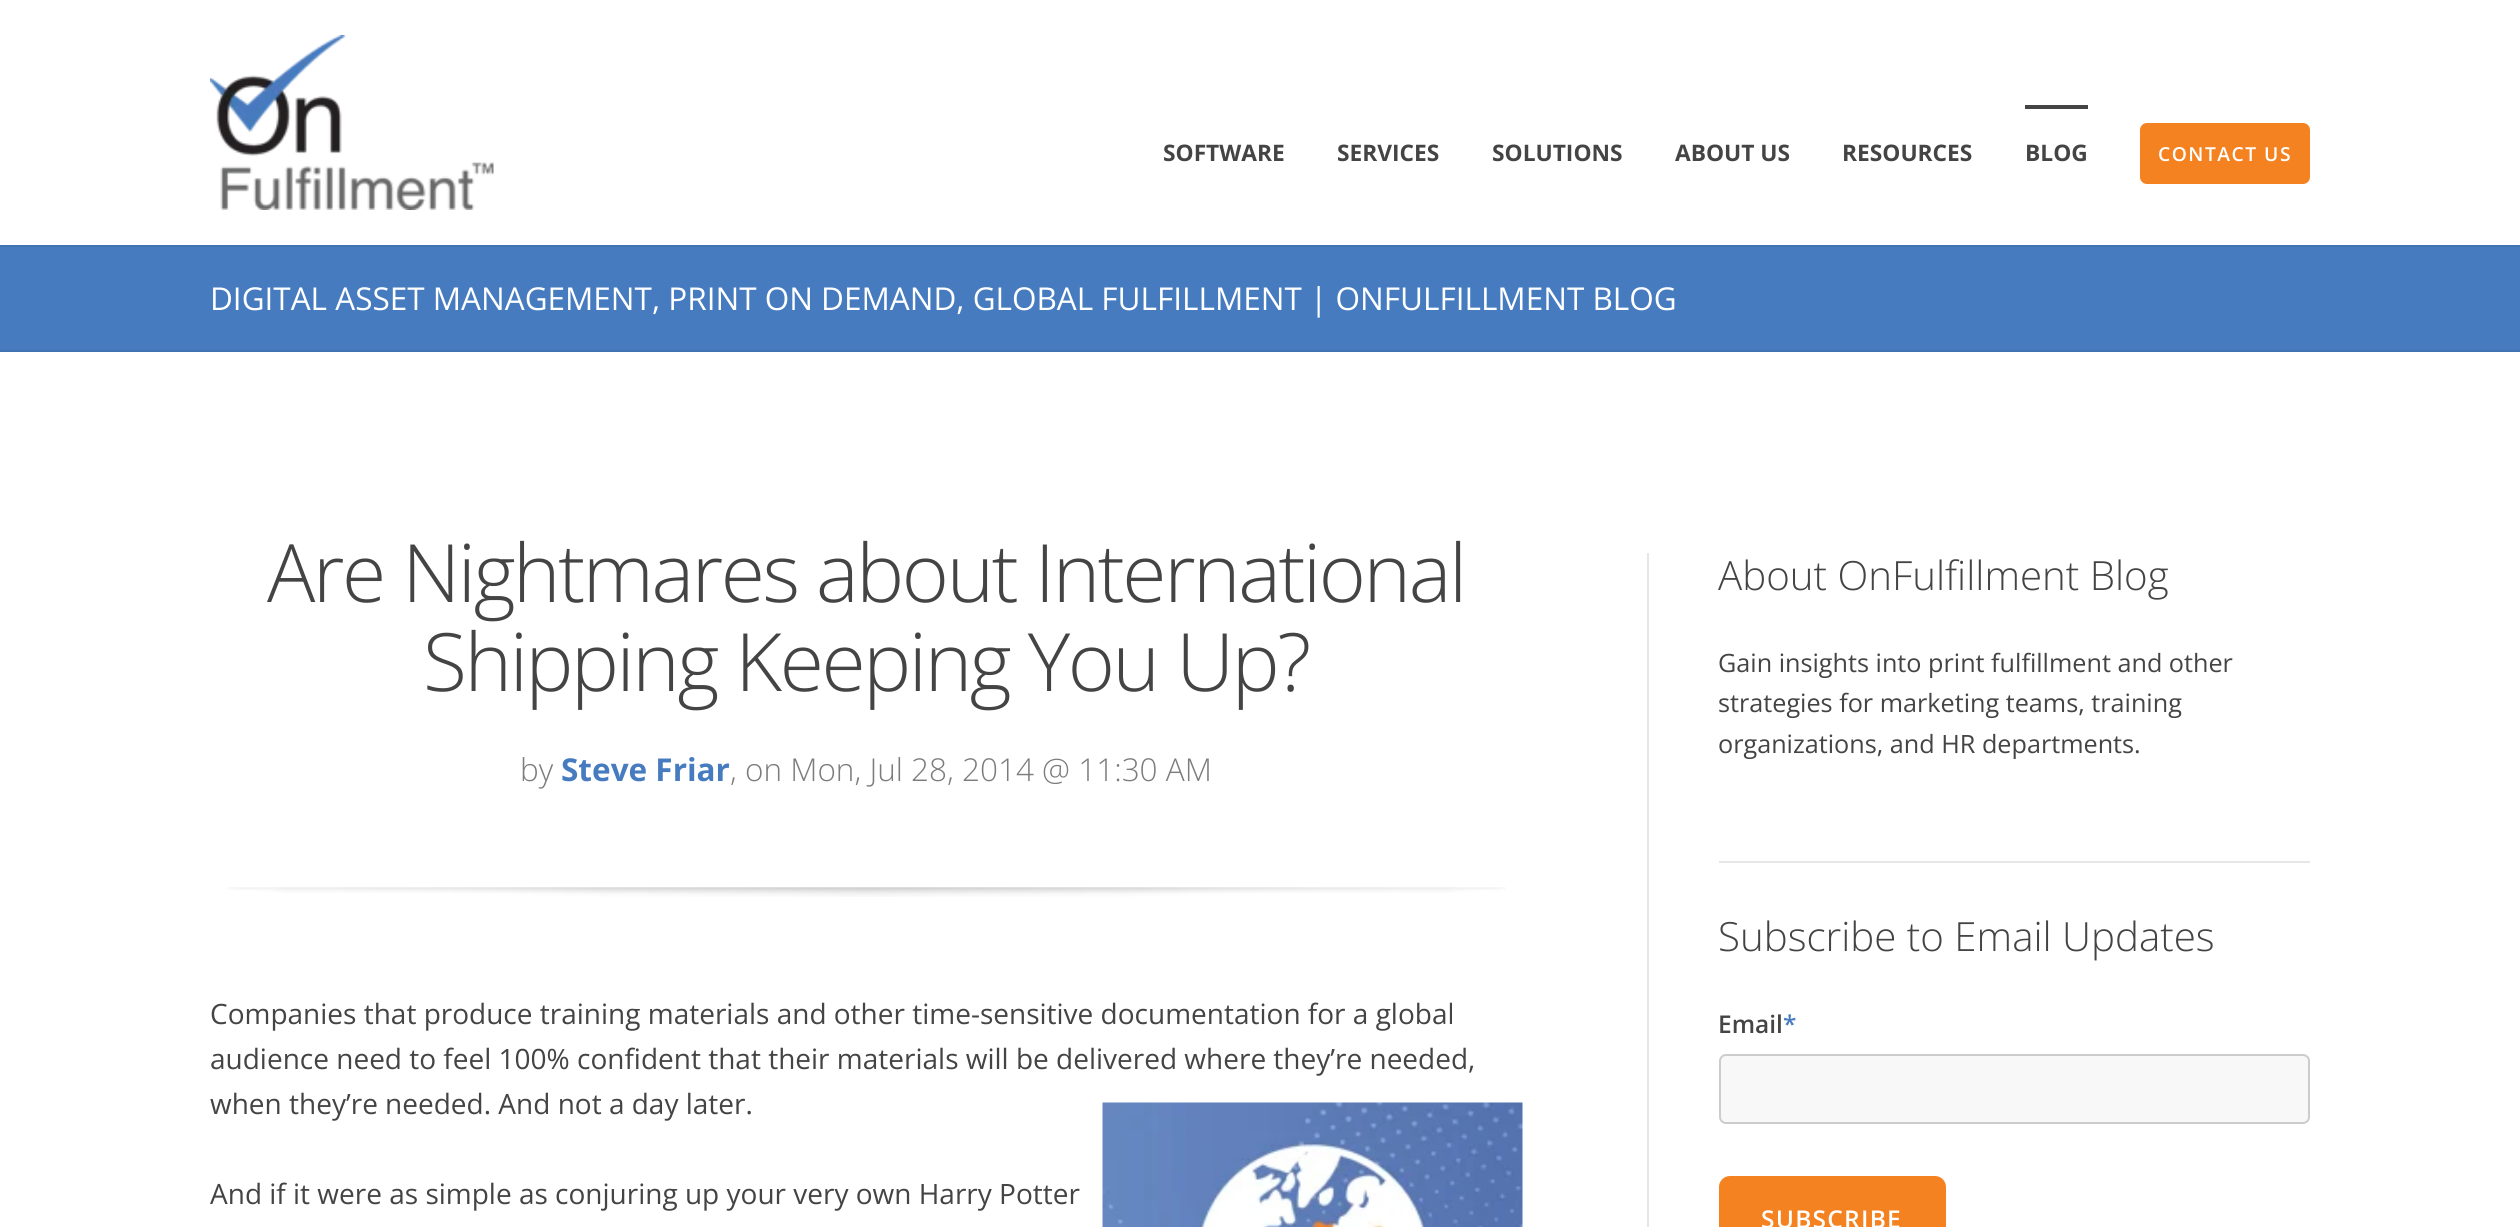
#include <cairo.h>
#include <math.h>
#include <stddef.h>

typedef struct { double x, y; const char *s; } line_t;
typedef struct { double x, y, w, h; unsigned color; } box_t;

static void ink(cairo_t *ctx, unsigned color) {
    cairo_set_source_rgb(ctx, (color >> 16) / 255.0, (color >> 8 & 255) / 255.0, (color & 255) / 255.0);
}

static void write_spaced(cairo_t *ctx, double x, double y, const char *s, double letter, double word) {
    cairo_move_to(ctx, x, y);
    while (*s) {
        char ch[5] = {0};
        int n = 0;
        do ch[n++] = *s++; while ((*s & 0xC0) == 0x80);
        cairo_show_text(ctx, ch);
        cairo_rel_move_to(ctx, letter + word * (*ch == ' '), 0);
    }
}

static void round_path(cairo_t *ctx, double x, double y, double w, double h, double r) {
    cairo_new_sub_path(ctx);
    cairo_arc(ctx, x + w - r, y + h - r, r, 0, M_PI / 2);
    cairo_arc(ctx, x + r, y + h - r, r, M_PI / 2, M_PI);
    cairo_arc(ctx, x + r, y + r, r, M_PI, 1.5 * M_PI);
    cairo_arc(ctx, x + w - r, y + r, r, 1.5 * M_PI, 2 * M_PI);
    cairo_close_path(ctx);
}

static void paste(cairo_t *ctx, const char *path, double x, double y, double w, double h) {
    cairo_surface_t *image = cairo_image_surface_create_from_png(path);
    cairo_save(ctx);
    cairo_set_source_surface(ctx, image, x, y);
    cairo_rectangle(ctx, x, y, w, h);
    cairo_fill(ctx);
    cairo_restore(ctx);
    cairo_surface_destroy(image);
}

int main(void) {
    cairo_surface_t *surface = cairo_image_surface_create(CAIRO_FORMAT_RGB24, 2520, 1227);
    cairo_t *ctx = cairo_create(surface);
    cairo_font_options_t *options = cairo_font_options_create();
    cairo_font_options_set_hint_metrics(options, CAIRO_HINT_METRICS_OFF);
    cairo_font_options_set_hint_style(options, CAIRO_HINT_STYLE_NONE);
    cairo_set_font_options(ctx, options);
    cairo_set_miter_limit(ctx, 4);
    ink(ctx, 0xFFFFFF);
    cairo_paint(ctx);
    paste(ctx, "media/1.png", 210, 35, 284, 175);
    cairo_select_font_face(ctx, "Open Sans", CAIRO_FONT_SLANT_NORMAL, CAIRO_FONT_WEIGHT_BOLD);
    cairo_set_font_size(ctx, 22.75);
    ink(ctx, 0x444444);
    {
        static const line_t items[] = {
            {1163, 161, "SOFTWARE"},
            {1337, 161, "SERVICES"},
            {1492, 161, "SOLUTIONS"},
            {1675, 161, "ABOUT US"},
            {1842, 161, "RESOURCES"},
        };
        for (size_t i = 0; i < sizeof items / sizeof *items; i++) {
            cairo_move_to(ctx, items[i].x, items[i].y);
            cairo_show_text(ctx, items[i].s);
        }
    }
    cairo_rectangle(ctx, 2025, 105, 63, 4);
    cairo_fill(ctx);
    cairo_move_to(ctx, 2025, 161);
    cairo_show_text(ctx, "BLOG");
    ink(ctx, 0xF58220);
    round_path(ctx, 2140, 123, 170, 61, 7);
    cairo_fill(ctx);
    cairo_select_font_face(ctx, "Open Sans SemiBold", CAIRO_FONT_SLANT_NORMAL, CAIRO_FONT_WEIGHT_NORMAL);
    cairo_set_font_size(ctx, 19.25);
    ink(ctx, 0xFFFFFF);
    write_spaced(ctx, 2158, 161, "CONTACT US", 1.5, 0);
    {
        static const box_t items[] = {
            {0, 245, 2520, 2, 0x4174B2},
            {0, 247, 2520, 103, 0x467CBF},
            {0, 350, 2520, 2, 0x4174B2},
        };
        for (size_t i = 0; i < sizeof items / sizeof *items; i++) {
            ink(ctx, items[i].color);
            cairo_rectangle(ctx, items[i].x, items[i].y, items[i].w, items[i].h);
            cairo_fill(ctx);
        }
    }
    cairo_select_font_face(ctx, "Open Sans", CAIRO_FONT_SLANT_NORMAL, CAIRO_FONT_WEIGHT_NORMAL);
    cairo_set_font_size(ctx, 31.5);
    ink(ctx, 0xFFFFFF);
    cairo_move_to(ctx, 210, 310);
    cairo_show_text(ctx, "DIGITAL ASSET MANAGEMENT, PRINT ON DEMAND, GLOBAL FULFILLMENT | ONFULFILLMENT BLOG");
    cairo_select_font_face(ctx, "Open Sans Light", CAIRO_FONT_SLANT_NORMAL, CAIRO_FONT_WEIGHT_NORMAL);
    cairo_set_font_size(ctx, 80.5);
    ink(ctx, 0x444444);
    write_spaced(ctx, 267, 602, "Are Nightmares about International", -2.4, 0);
    write_spaced(ctx, 423, 691, "Shipping Keeping You Up?", -2.4, 0);
    cairo_set_font_size(ctx, 31.5);
    ink(ctx, 0x7C7C7C);
    cairo_move_to(ctx, 520, 781);
    cairo_show_text(ctx, "by");
    cairo_select_font_face(ctx, "Open Sans", CAIRO_FONT_SLANT_NORMAL, CAIRO_FONT_WEIGHT_BOLD);
    ink(ctx, 0x467CBF);
    cairo_move_to(ctx, 561, 781);
    cairo_show_text(ctx, "Steve Friar");
    cairo_select_font_face(ctx, "Open Sans Light", CAIRO_FONT_SLANT_NORMAL, CAIRO_FONT_WEIGHT_NORMAL);
    ink(ctx, 0x7C7C7C);
    cairo_move_to(ctx, 730, 781);
    cairo_show_text(ctx, ", on Mon, Jul 28, 2014 @ 11:30 AM");
    paste(ctx, "media/2.png", 227, 887, 1279, 10);
    cairo_select_font_face(ctx, "Open Sans", CAIRO_FONT_SLANT_NORMAL, CAIRO_FONT_WEIGHT_NORMAL);
    cairo_set_font_size(ctx, 28);
    ink(ctx, 0x444444);
    {
        static const line_t items[] = {
            {210, 1024, "Companies that produce training materials and other time-sensitive documentation for a global"},
            {210, 1069, "audience need to feel 100% confident that their materials will be delivered where they’re needed,"},
            {210, 1114, "when they’re needed. And not a day later."},
        };
        for (size_t i = 0; i < sizeof items / sizeof *items; i++) {
            cairo_move_to(ctx, items[i].x, items[i].y);
            cairo_show_text(ctx, items[i].s);
        }
    }
    paste(ctx, "media/3.png", 1102, 1102, 421, 125);
    cairo_move_to(ctx, 210, 1204);
    cairo_show_text(ctx, "And if it were as simple as conjuring up your very own Harry Potter");
    ink(ctx, 0xE6E6E6);
    cairo_rectangle(ctx, 1647, 553, 2, 674);
    cairo_fill(ctx);
    cairo_select_font_face(ctx, "Open Sans Light", CAIRO_FONT_SLANT_NORMAL, CAIRO_FONT_WEIGHT_NORMAL);
    cairo_set_font_size(ctx, 40.25);
    ink(ctx, 0x444444);
    cairo_move_to(ctx, 1718, 590);
    cairo_show_text(ctx, "About OnFulfillment Blog");
    cairo_select_font_face(ctx, "Open Sans", CAIRO_FONT_SLANT_NORMAL, CAIRO_FONT_WEIGHT_NORMAL);
    cairo_set_font_size(ctx, 25.2);
    {
        static const line_t items[] = {
            {1718, 672, "Gain insights into print fulfillment and other"},
            {1718, 712, "strategies for marketing teams, training"},
            {1718, 753, "organizations, and HR departments."},
        };
        for (size_t i = 0; i < sizeof items / sizeof *items; i++) {
            cairo_move_to(ctx, items[i].x, items[i].y);
            cairo_show_text(ctx, items[i].s);
        }
    }
    ink(ctx, 0xE6E6E6);
    cairo_rectangle(ctx, 1719, 861, 591, 2);
    cairo_fill(ctx);
    cairo_select_font_face(ctx, "Open Sans Light", CAIRO_FONT_SLANT_NORMAL, CAIRO_FONT_WEIGHT_NORMAL);
    cairo_set_font_size(ctx, 40.25);
    ink(ctx, 0x444444);
    cairo_move_to(ctx, 1718, 951);
    cairo_show_text(ctx, "Subscribe to Email Updates");
    cairo_select_font_face(ctx, "Open Sans SemiBold", CAIRO_FONT_SLANT_NORMAL, CAIRO_FONT_WEIGHT_NORMAL);
    cairo_set_font_size(ctx, 24.5);
    cairo_move_to(ctx, 1718, 1033);
    cairo_show_text(ctx, "Email");
    ink(ctx, 0x467CBF);
    cairo_move_to(ctx, 1783, 1033);
    cairo_show_text(ctx, "*");
    ink(ctx, 0xF8F8F8);
    round_path(ctx, 1720, 1055, 589, 68, 6);
    cairo_fill_preserve(ctx);
    ink(ctx, 0xCCCCCC);
    cairo_stroke(ctx);
    ink(ctx, 0xF58220);
    round_path(ctx, 1719, 1176, 227, 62, 11);
    cairo_fill(ctx);
    ink(ctx, 0xFFFFFF);
    write_spaced(ctx, 1761, 1228, "SUBSCRIBE", 1.25, 0);
    cairo_surface_write_to_png(surface, "image.png");
    cairo_font_options_destroy(options);
    cairo_destroy(ctx);
    cairo_surface_destroy(surface);
    return 0;
}
